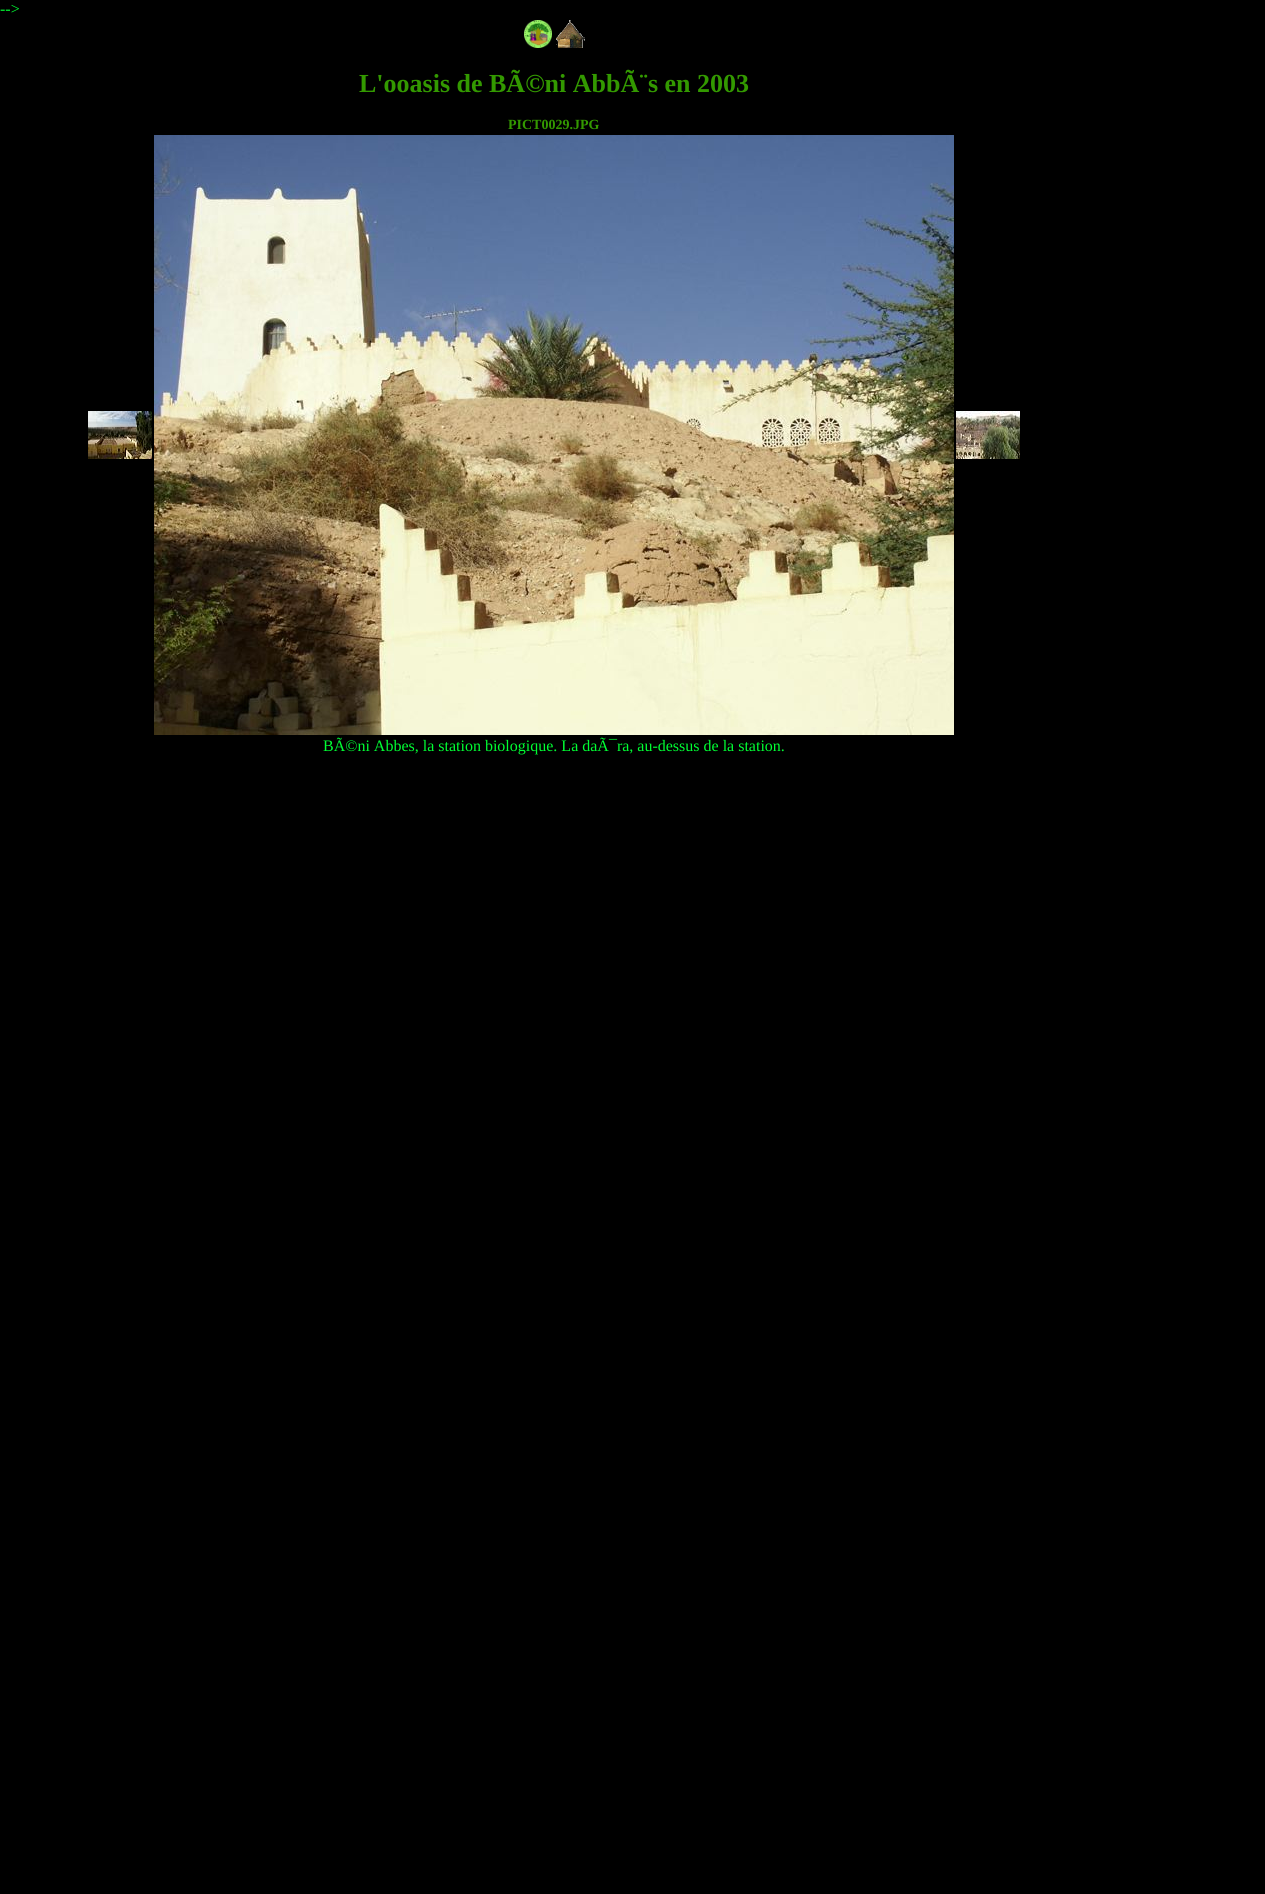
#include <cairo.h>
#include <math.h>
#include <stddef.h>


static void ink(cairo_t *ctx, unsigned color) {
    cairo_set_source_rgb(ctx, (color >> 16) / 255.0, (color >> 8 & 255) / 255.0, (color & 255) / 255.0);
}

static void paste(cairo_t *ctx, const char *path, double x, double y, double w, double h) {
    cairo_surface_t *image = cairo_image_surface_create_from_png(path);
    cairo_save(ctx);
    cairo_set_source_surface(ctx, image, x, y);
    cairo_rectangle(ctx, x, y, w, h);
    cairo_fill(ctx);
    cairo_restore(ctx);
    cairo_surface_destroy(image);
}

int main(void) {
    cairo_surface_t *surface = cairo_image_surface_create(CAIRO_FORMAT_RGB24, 1265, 1894);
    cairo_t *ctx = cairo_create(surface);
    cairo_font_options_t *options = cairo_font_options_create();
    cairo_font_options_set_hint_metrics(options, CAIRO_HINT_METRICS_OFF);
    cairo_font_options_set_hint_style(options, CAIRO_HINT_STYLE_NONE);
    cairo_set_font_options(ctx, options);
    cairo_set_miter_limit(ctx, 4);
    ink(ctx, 0x000000);
    cairo_paint(ctx);
    cairo_select_font_face(ctx, "Liberation Serif", CAIRO_FONT_SLANT_NORMAL, CAIRO_FONT_WEIGHT_NORMAL);
    cairo_set_font_size(ctx, 16);
    ink(ctx, 0x00FF33);
    cairo_move_to(ctx, 0, 14);
    cairo_show_text(ctx, "-->");
    paste(ctx, "media/1.png", 524, 20, 28, 28);
    paste(ctx, "media/2.png", 556, 20, 29, 28);
    cairo_select_font_face(ctx, "Liberation Serif", CAIRO_FONT_SLANT_NORMAL, CAIRO_FONT_WEIGHT_BOLD);
    cairo_set_font_size(ctx, 26);
    ink(ctx, 0x339900);
    cairo_move_to(ctx, 359, 92);
    cairo_show_text(ctx, "L'ooasis de BÃ©ni AbbÃ¨s en 2003");
    cairo_set_font_size(ctx, 14);
    cairo_move_to(ctx, 508, 129);
    cairo_show_text(ctx, "PICT0029.JPG");
    paste(ctx, "media/3.png", 88, 411, 64, 48);
    paste(ctx, "media/4.png", 154, 135, 800, 600);
    paste(ctx, "media/5.png", 956, 411, 64, 48);
    cairo_select_font_face(ctx, "Liberation Serif", CAIRO_FONT_SLANT_NORMAL, CAIRO_FONT_WEIGHT_NORMAL);
    cairo_set_font_size(ctx, 16);
    ink(ctx, 0x00FF33);
    cairo_move_to(ctx, 323, 751);
    cairo_show_text(ctx, "BÃ©ni Abbes, la station biologique. La daÃ¯ra, au-dessus de la station.");
    cairo_surface_write_to_png(surface, "image.png");
    cairo_font_options_destroy(options);
    cairo_destroy(ctx);
    cairo_surface_destroy(surface);
    return 0;
}
